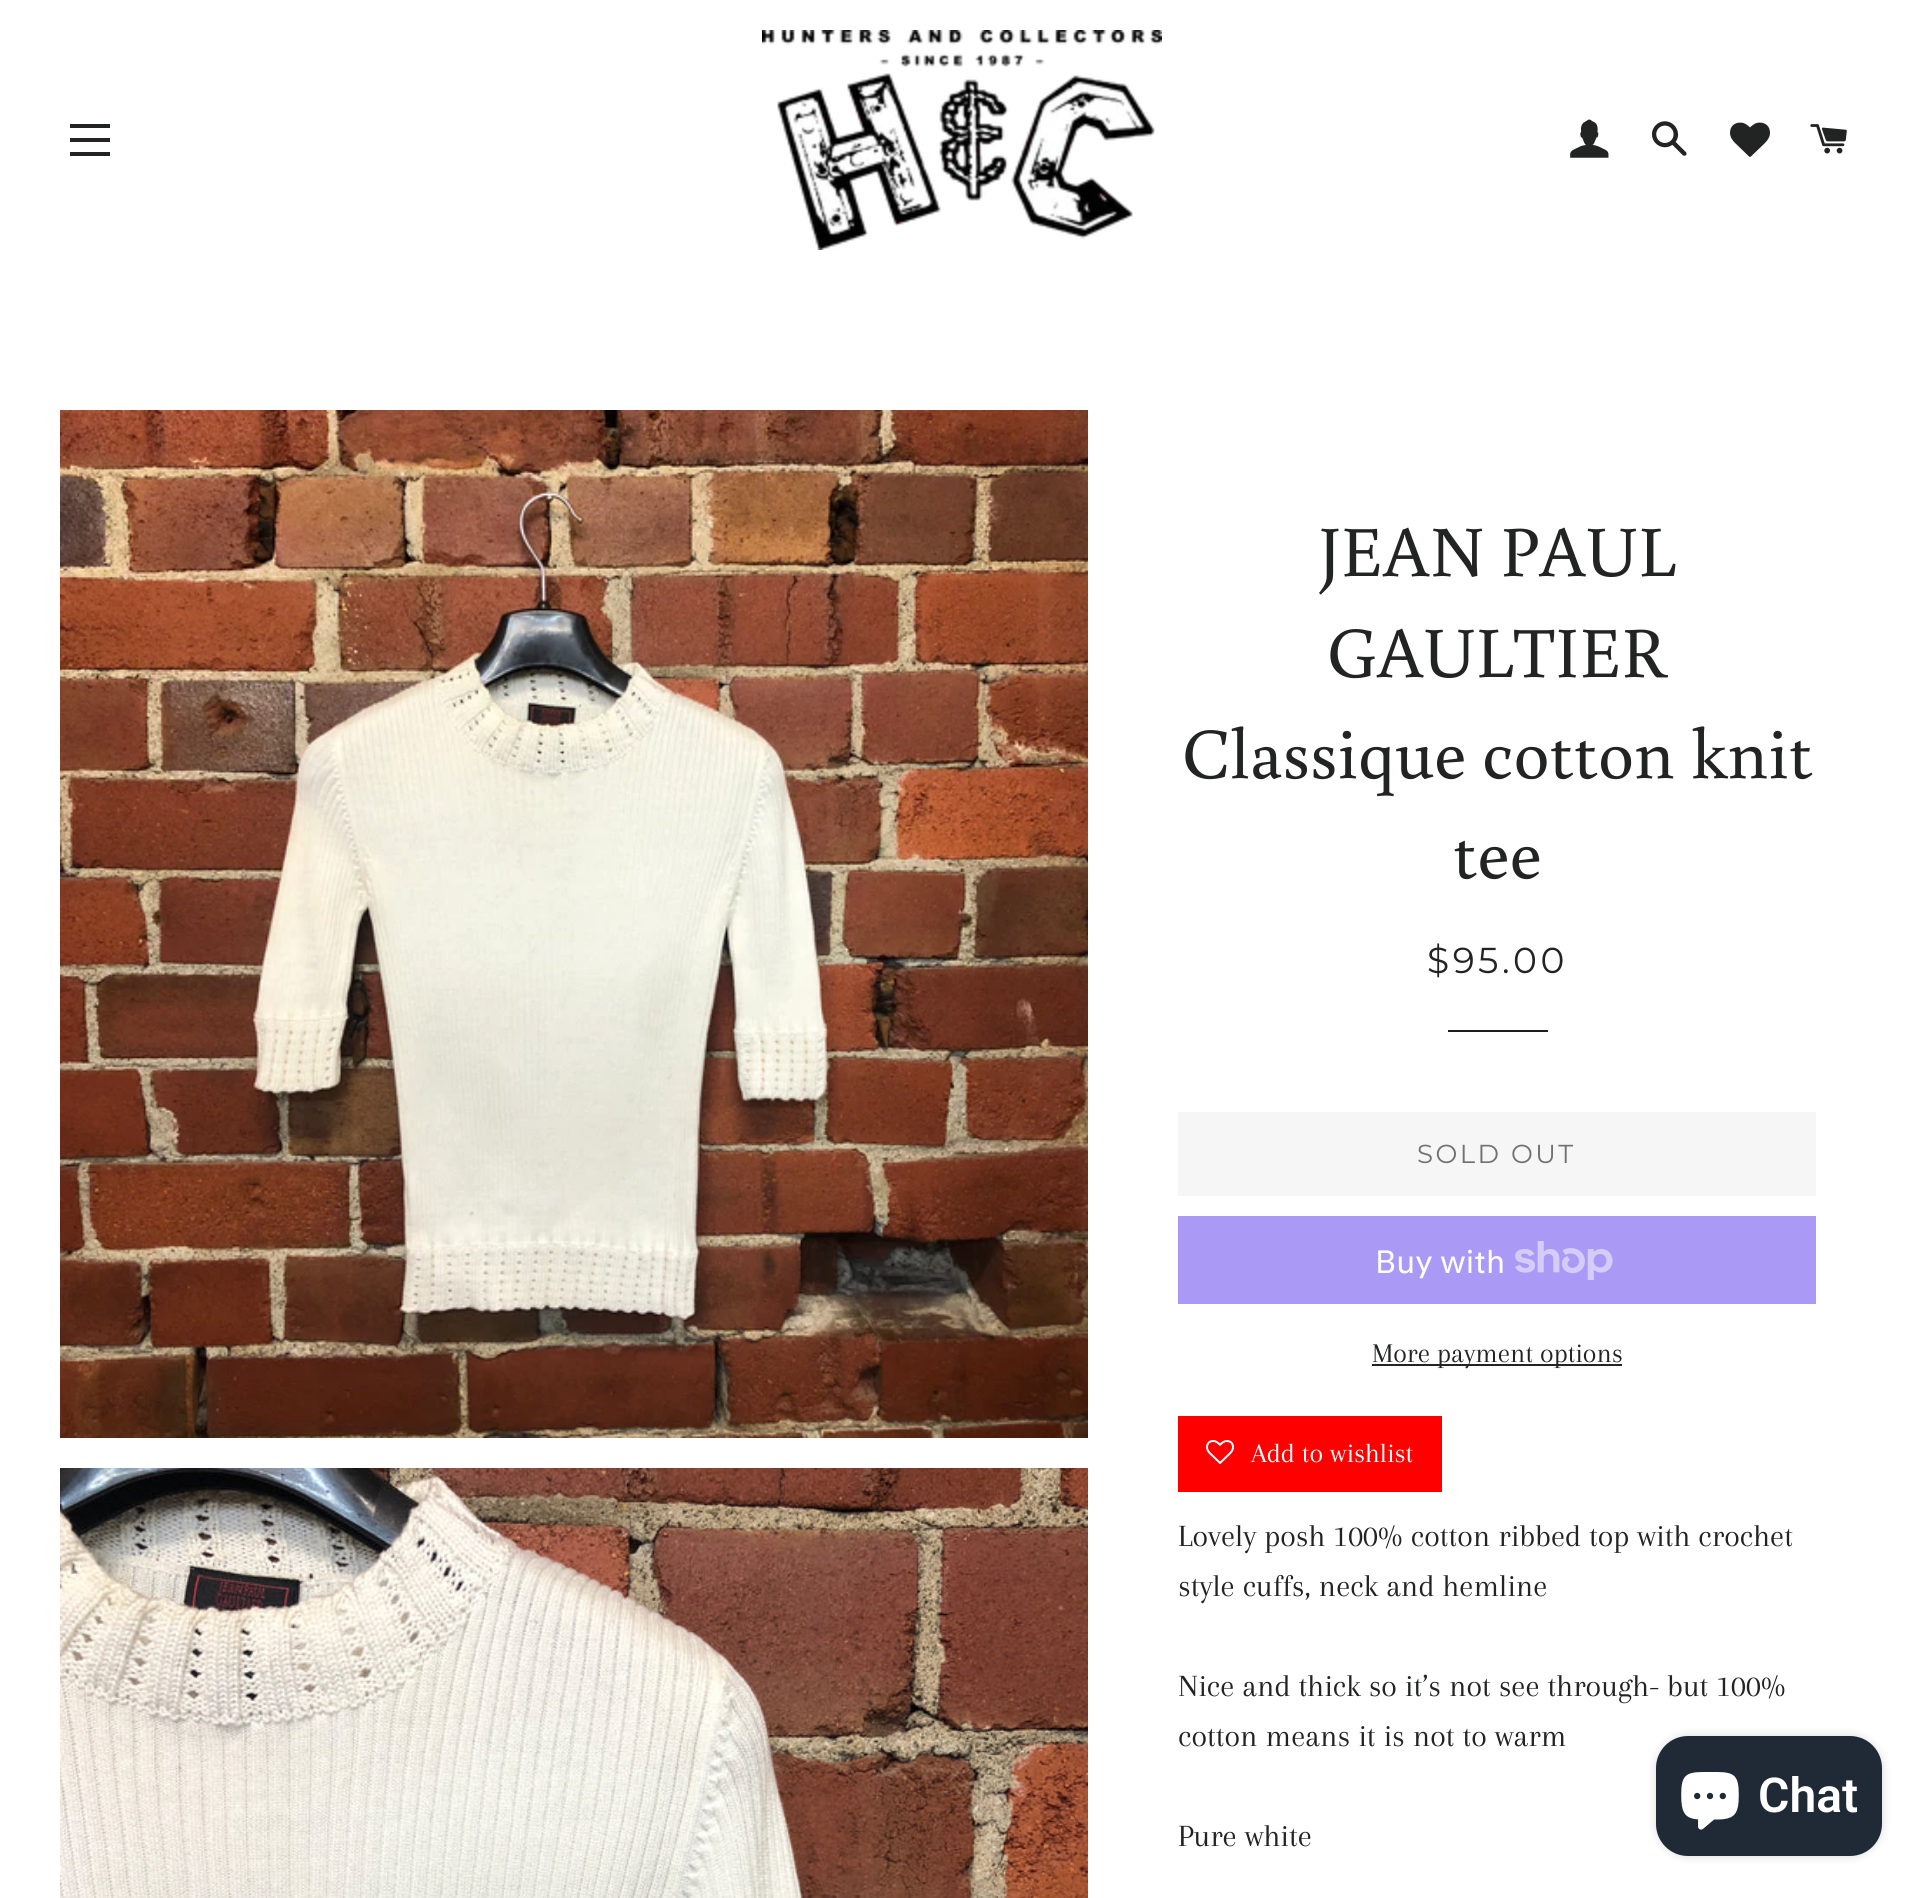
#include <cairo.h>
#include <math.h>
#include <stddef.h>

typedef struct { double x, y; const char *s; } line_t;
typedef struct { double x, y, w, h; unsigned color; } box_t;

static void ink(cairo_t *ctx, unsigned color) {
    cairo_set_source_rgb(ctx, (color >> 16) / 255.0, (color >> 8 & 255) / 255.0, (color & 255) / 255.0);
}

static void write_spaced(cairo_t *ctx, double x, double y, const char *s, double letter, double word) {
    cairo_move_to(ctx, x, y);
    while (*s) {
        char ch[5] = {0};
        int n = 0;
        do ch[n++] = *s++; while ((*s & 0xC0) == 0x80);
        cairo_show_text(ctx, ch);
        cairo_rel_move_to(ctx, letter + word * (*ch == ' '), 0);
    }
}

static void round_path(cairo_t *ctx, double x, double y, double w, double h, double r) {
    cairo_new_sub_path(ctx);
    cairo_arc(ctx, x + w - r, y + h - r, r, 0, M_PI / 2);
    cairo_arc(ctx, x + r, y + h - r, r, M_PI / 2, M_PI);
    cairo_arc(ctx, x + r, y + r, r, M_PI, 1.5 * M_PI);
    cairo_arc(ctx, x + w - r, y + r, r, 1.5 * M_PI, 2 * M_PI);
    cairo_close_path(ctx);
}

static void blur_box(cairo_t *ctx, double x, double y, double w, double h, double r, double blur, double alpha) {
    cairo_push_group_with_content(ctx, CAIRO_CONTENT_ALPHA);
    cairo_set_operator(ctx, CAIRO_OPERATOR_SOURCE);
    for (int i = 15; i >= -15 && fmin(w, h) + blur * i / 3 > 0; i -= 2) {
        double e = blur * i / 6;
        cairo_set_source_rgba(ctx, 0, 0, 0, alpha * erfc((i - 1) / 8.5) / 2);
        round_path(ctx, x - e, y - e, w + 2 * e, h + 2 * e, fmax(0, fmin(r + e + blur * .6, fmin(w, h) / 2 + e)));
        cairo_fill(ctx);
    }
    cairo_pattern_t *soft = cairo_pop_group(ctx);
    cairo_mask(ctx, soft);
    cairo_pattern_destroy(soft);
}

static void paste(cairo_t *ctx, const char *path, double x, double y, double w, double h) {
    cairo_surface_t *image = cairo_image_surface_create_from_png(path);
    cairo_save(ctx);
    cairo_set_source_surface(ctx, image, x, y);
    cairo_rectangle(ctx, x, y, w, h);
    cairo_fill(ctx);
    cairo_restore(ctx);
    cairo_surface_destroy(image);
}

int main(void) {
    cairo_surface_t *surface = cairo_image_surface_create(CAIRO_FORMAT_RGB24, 1925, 1898);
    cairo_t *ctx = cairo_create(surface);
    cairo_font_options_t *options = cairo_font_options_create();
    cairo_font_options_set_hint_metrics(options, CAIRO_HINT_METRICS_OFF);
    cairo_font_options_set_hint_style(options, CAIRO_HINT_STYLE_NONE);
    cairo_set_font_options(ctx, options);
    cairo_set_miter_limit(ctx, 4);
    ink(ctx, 0xFFFFFF);
    cairo_paint(ctx);
    {
        static const box_t items[] = {
            {70, 124, 40, 4, 0x222323},
            {70, 138, 40, 4, 0x222323},
            {70, 152, 40, 4, 0x222323},
        };
        for (size_t i = 0; i < sizeof items / sizeof *items; i++) {
            ink(ctx, items[i].color);
            cairo_rectangle(ctx, items[i].x, items[i].y, items[i].w, items[i].h);
            cairo_fill(ctx);
        }
    }
    paste(ctx, "media/1.png", 762, 30, 400, 220);
    paste(ctx, "media/2.png", 1570, 119, 39, 39);
    paste(ctx, "media/3.png", 1651, 121, 36, 35);
    paste(ctx, "media/4.png", 1730, 122, 40, 35);
    paste(ctx, "media/5.png", 1810, 124, 37, 30);
    paste(ctx, "media/6.png", 60, 410, 1028, 1028);
    paste(ctx, "media/7.png", 60, 1468, 1028, 430);
    cairo_select_font_face(ctx, "Buenard", CAIRO_FONT_SLANT_NORMAL, CAIRO_FONT_WEIGHT_NORMAL);
    cairo_set_font_size(ctx, 72);
    {
        static const line_t items[] = {
            {1319, 576, "JEAN PAUL"},
            {1327, 677, "GAULTIER"},
            {1182, 778, "Classique cotton knit"},
            {1453, 878, "tee"},
        };
        for (size_t i = 0; i < sizeof items / sizeof *items; i++) {
            cairo_move_to(ctx, items[i].x, items[i].y);
            cairo_show_text(ctx, items[i].s);
        }
    }
    cairo_select_font_face(ctx, "Montserrat", CAIRO_FONT_SLANT_NORMAL, CAIRO_FONT_WEIGHT_NORMAL);
    cairo_set_font_size(ctx, 36);
    write_spaced(ctx, 1427, 973, "$95.00", 3.5, 0);
    ink(ctx, 0x1C1D1D);
    cairo_rectangle(ctx, 1448, 1030, 100, 2);
    cairo_fill(ctx);
    ink(ctx, 0xF6F6F6);
    cairo_rectangle(ctx, 1178, 1112, 638, 84);
    cairo_fill(ctx);
    cairo_set_font_size(ctx, 26);
    ink(ctx, 0x717171);
    write_spaced(ctx, 1417, 1163, "SOLD OUT", 2.5, 0);
    ink(ctx, 0xAA99F5);
    cairo_rectangle(ctx, 1178, 1216, 638, 88);
    cairo_fill(ctx);
    cairo_select_font_face(ctx, "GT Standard", CAIRO_FONT_SLANT_NORMAL, CAIRO_FONT_WEIGHT_NORMAL);
    cairo_set_font_size(ctx, 32);
    ink(ctx, 0xFFFFFF);
    cairo_move_to(ctx, 1375, 1273);
    cairo_show_text(ctx, "Buy with");
    paste(ctx, "media/8.png", 1515, 1241, 98, 39);
    ink(ctx, 0x222323);
    cairo_rectangle(ctx, 1372, 1364, 250, 2);
    cairo_fill(ctx);
    cairo_select_font_face(ctx, "Arapey", CAIRO_FONT_SLANT_NORMAL, CAIRO_FONT_WEIGHT_NORMAL);
    cairo_set_font_size(ctx, 28);
    cairo_move_to(ctx, 1372, 1362);
    cairo_show_text(ctx, "More payment options");
    ink(ctx, 0xFF0000);
    cairo_rectangle(ctx, 1178, 1416, 264, 76);
    cairo_fill(ctx);
    paste(ctx, "media/9.png", 1206, 1440, 28, 24);
    ink(ctx, 0xFFFFFF);
    cairo_move_to(ctx, 1251, 1462);
    cairo_show_text(ctx, "Add to wishlist");
    cairo_set_font_size(ctx, 32);
    ink(ctx, 0x222323);
    {
        static const line_t items[] = {
            {1178, 1546, "Lovely posh 100% cotton ribbed top with crochet"},
            {1178, 1596, "style cuffs, neck and hemline"},
            {1178, 1696, "Nice and thick so it’s not see through- but 100%"},
            {1178, 1746, "cotton means it is not to warm"},
            {1178, 1846, "Pure white"},
        };
        for (size_t i = 0; i < sizeof items / sizeof *items; i++) {
            cairo_move_to(ctx, items[i].x, items[i].y);
            cairo_show_text(ctx, items[i].s);
        }
    }
    ink(ctx, 0x000000);
    blur_box(ctx, 1656, 1736, 226, 120, 32, 5, 0.15);
    ink(ctx, 0x202A36);
    round_path(ctx, 1656, 1736, 226, 120, 32);
    cairo_fill(ctx);
    paste(ctx, "media/10.png", 1681, 1772, 58, 58);
    cairo_select_font_face(ctx, "Roboto SemiBold", CAIRO_FONT_SLANT_NORMAL, CAIRO_FONT_WEIGHT_NORMAL);
    cairo_set_font_size(ctx, 48);
    ink(ctx, 0xFFFFFF);
    cairo_move_to(ctx, 1758, 1812);
    cairo_show_text(ctx, "Chat");
    cairo_surface_write_to_png(surface, "image.png");
    cairo_font_options_destroy(options);
    cairo_destroy(ctx);
    cairo_surface_destroy(surface);
    return 0;
}
